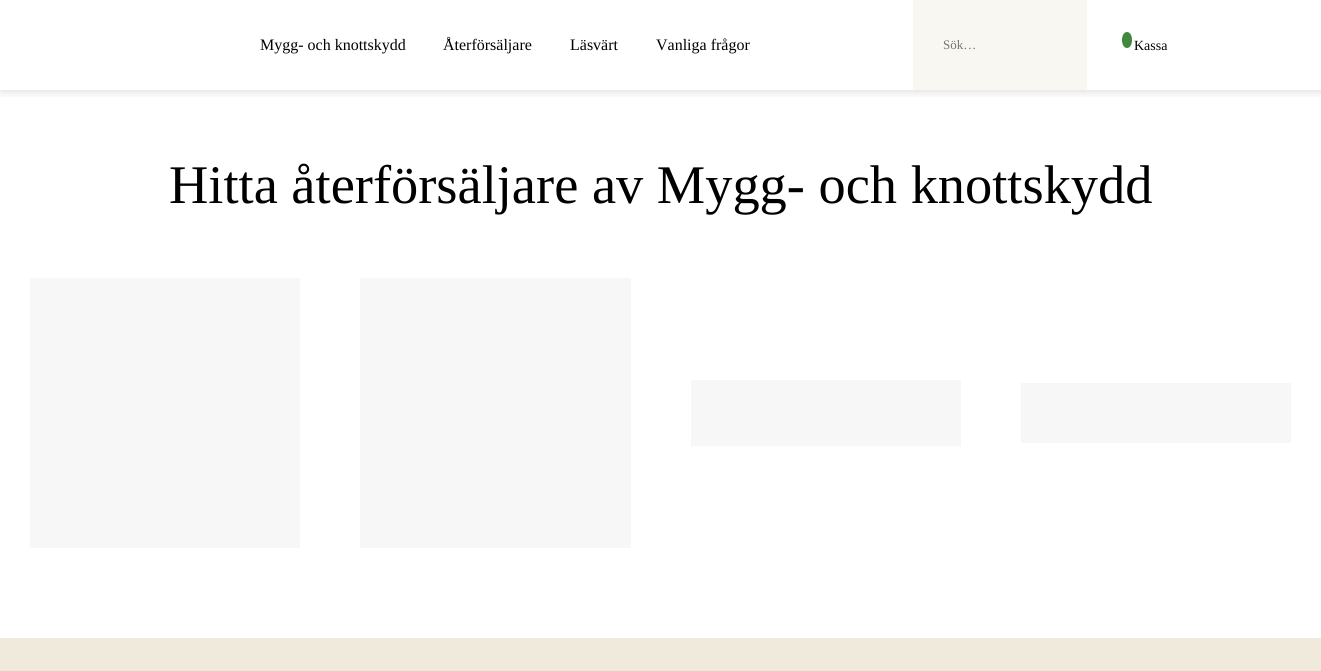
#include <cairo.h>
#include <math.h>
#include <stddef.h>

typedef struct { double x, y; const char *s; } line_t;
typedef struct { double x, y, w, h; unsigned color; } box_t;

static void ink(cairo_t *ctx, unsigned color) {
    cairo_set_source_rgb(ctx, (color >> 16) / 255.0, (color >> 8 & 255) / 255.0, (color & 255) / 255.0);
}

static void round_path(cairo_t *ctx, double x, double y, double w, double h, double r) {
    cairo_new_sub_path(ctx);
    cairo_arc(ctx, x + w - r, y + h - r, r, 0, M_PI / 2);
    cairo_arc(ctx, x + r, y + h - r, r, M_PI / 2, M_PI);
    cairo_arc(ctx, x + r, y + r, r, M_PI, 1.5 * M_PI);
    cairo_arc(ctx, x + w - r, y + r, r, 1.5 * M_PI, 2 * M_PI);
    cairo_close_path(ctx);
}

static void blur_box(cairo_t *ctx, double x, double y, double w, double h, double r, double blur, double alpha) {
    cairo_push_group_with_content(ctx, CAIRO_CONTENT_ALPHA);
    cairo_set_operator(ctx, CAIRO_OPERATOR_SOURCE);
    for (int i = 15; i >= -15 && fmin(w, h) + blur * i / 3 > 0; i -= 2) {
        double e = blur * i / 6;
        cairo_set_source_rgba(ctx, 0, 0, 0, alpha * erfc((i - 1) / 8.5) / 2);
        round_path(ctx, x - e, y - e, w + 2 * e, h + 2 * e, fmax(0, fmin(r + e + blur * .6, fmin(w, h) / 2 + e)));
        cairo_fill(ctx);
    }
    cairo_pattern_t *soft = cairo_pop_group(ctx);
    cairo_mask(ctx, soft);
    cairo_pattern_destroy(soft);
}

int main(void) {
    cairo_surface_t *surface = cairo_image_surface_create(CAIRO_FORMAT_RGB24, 1321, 671);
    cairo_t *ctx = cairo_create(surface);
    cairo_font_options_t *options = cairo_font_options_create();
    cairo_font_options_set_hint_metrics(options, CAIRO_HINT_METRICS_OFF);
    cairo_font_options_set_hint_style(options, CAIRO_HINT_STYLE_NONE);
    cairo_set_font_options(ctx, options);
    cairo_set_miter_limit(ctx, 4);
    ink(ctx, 0xFFFFFF);
    cairo_paint(ctx);
    cairo_save(ctx);
    cairo_rectangle(ctx, 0, 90, 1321, 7);
    cairo_clip(ctx);
    ink(ctx, 0x000000);
    blur_box(ctx, 1, 1, 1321, 90, 0, 5, 0.15);
    cairo_restore(ctx);
    cairo_select_font_face(ctx, "Liberation Serif", CAIRO_FONT_SLANT_NORMAL, CAIRO_FONT_WEIGHT_NORMAL);
    cairo_set_font_size(ctx, 16);
    ink(ctx, 0x000000);
    {
        static const line_t items[] = {
            {260, 50, "Mygg- och knottskydd"},
            {443, 50, "Återförsäljare"},
            {570, 50, "Läsvärt"},
            {656, 50, "Vanliga frågor"},
        };
        for (size_t i = 0; i < sizeof items / sizeof *items; i++) {
            cairo_move_to(ctx, items[i].x, items[i].y);
            cairo_show_text(ctx, items[i].s);
        }
    }
    ink(ctx, 0xF9F7F2);
    cairo_rectangle(ctx, 913, 0, 174, 90);
    cairo_fill(ctx);
    cairo_set_font_size(ctx, 13);
    ink(ctx, 0x757575);
    cairo_move_to(ctx, 943, 49);
    cairo_show_text(ctx, "Sök…");
    ink(ctx, 0x3F883C);
    cairo_new_path(ctx);
    cairo_move_to(ctx, 1127, 32);
    cairo_curve_to(ctx, 1130, 32, 1132, 35.5, 1132, 40);
    cairo_curve_to(ctx, 1132, 44.5, 1130, 48, 1127, 48);
    cairo_curve_to(ctx, 1124, 48, 1122, 44.5, 1122, 40);
    cairo_curve_to(ctx, 1122, 35.5, 1124, 32, 1127, 32);
    cairo_close_path(ctx);
    cairo_fill(ctx);
    cairo_set_font_size(ctx, 14);
    ink(ctx, 0x000000);
    cairo_move_to(ctx, 1134, 50);
    cairo_show_text(ctx, "Kassa");
    cairo_set_font_size(ctx, 54.4);
    cairo_move_to(ctx, 169, 203);
    cairo_show_text(ctx, "Hitta återförsäljare av Mygg- och knottskydd");
    {
        static const box_t items[] = {
            {30, 278, 270, 270, 0xF7F7F7},
            {360, 278, 271, 270, 0xF7F7F7},
            {691, 380, 270, 66, 0xF7F7F7},
            {1021, 383, 270, 60, 0xF7F7F7},
            {0, 638, 1321, 33, 0xF0EADC},
        };
        for (size_t i = 0; i < sizeof items / sizeof *items; i++) {
            ink(ctx, items[i].color);
            cairo_rectangle(ctx, items[i].x, items[i].y, items[i].w, items[i].h);
            cairo_fill(ctx);
        }
    }
    cairo_surface_write_to_png(surface, "image.png");
    cairo_font_options_destroy(options);
    cairo_destroy(ctx);
    cairo_surface_destroy(surface);
    return 0;
}
